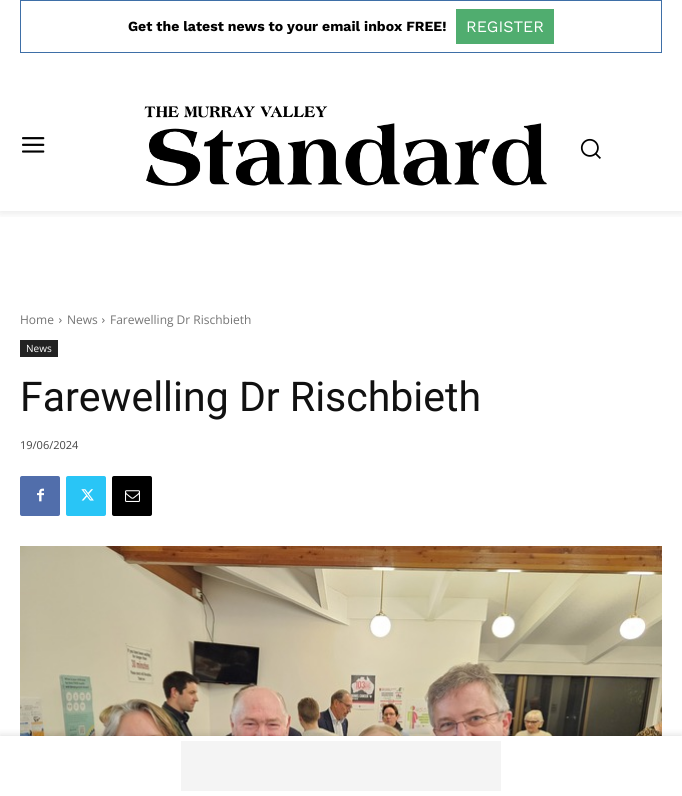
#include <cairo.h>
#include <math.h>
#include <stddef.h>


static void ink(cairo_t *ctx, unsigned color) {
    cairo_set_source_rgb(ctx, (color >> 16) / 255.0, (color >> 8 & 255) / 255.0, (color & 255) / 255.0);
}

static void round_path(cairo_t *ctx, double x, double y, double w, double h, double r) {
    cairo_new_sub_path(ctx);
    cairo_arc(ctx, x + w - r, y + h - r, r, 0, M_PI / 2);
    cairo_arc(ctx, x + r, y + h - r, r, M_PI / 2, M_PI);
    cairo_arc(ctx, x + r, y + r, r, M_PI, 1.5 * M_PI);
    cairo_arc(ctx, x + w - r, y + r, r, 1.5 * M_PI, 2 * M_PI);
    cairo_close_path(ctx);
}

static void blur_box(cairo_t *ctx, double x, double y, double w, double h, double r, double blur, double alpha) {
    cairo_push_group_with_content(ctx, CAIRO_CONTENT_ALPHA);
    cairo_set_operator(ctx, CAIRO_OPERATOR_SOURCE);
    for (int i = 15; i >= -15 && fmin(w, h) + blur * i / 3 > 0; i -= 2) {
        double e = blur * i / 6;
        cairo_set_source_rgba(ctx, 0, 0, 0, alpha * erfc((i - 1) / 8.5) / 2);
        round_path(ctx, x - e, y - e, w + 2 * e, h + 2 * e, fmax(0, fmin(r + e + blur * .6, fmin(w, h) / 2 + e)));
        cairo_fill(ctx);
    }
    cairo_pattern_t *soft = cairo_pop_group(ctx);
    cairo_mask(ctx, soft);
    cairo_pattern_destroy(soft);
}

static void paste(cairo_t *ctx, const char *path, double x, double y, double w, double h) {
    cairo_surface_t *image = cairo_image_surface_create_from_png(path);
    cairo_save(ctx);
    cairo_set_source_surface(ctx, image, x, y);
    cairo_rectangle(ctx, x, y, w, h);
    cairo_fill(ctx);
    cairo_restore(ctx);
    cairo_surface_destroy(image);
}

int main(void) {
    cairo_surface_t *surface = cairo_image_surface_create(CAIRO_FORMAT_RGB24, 682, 796);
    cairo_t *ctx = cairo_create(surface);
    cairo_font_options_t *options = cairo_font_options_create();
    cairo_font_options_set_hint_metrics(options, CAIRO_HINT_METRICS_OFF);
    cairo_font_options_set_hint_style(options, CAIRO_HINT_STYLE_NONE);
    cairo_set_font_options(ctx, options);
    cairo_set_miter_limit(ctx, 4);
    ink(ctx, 0xFFFFFF);
    cairo_paint(ctx);
    cairo_rectangle(ctx, 20.5, 0.5, 641, 52);
    ink(ctx, 0x3E6FA7);
    cairo_set_line_width(ctx, 1);
    cairo_stroke(ctx);
    ink(ctx, 0x50AD6F);
    cairo_rectangle(ctx, 456, 9, 98, 35);
    cairo_fill(ctx);
    paste(ctx, "media/1.png", 22, 137, 23, 16);
    paste(ctx, "media/2.png", 144, 106, 403, 80);
    paste(ctx, "media/3.png", 580, 138, 21, 21);
    cairo_save(ctx);
    cairo_rectangle(ctx, 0, 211, 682, 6);
    cairo_clip(ctx);
    ink(ctx, 0x000000);
    blur_box(ctx, 0, 2, 682, 211, 0, 5, 0.09);
    cairo_restore(ctx);
    cairo_select_font_face(ctx, "Work Sans", CAIRO_FONT_SLANT_NORMAL, CAIRO_FONT_WEIGHT_BOLD);
    cairo_set_font_size(ctx, 14);
    ink(ctx, 0x000000);
    cairo_move_to(ctx, 128, 31);
    cairo_show_text(ctx, "Get the latest news to your email inbox FREE!");
    cairo_select_font_face(ctx, "Work Sans", CAIRO_FONT_SLANT_NORMAL, CAIRO_FONT_WEIGHT_NORMAL);
    cairo_set_font_size(ctx, 16);
    ink(ctx, 0xFFFFFF);
    cairo_move_to(ctx, 466, 32);
    cairo_show_text(ctx, "REGISTER");
    cairo_select_font_face(ctx, "Open Sans", CAIRO_FONT_SLANT_NORMAL, CAIRO_FONT_WEIGHT_NORMAL);
    cairo_set_font_size(ctx, 12);
    ink(ctx, 0x747474);
    cairo_move_to(ctx, 20, 324);
    cairo_show_text(ctx, "Home");
    paste(ctx, "media/4.png", 59, 318, 3, 5);
    cairo_move_to(ctx, 67, 324);
    cairo_show_text(ctx, "News");
    paste(ctx, "media/4.png", 102, 318, 3, 5);
    cairo_move_to(ctx, 110, 324);
    cairo_show_text(ctx, "Farewelling Dr Rischbieth");
    ink(ctx, 0x222222);
    cairo_rectangle(ctx, 20, 340, 38, 17);
    cairo_fill(ctx);
    cairo_set_font_size(ctx, 10);
    ink(ctx, 0xFFFFFF);
    cairo_move_to(ctx, 26, 352);
    cairo_show_text(ctx, "News");
    cairo_select_font_face(ctx, "Roboto", CAIRO_FONT_SLANT_NORMAL, CAIRO_FONT_WEIGHT_NORMAL);
    cairo_set_font_size(ctx, 41);
    ink(ctx, 0x111111);
    cairo_move_to(ctx, 20, 411);
    cairo_show_text(ctx, "Farewelling Dr Rischbieth");
    cairo_select_font_face(ctx, "Open Sans", CAIRO_FONT_SLANT_NORMAL, CAIRO_FONT_WEIGHT_NORMAL);
    cairo_set_font_size(ctx, 11);
    ink(ctx, 0x444444);
    cairo_move_to(ctx, 20, 449);
    cairo_show_text(ctx, "19/06/2024");
    ink(ctx, 0x516EAB);
    round_path(ctx, 20, 476, 40, 40, 2);
    cairo_fill(ctx);
    paste(ctx, "media/5.png", 37, 488, 7, 14);
    ink(ctx, 0x29C5F6);
    round_path(ctx, 66, 476, 40, 40, 2);
    cairo_fill(ctx);
    paste(ctx, "media/6.png", 81, 489, 13, 12);
    ink(ctx, 0x000000);
    round_path(ctx, 112, 476, 40, 40, 2);
    cairo_fill(ctx);
    paste(ctx, "media/7.png", 125, 490, 15, 12);
    paste(ctx, "media/8.png", 20, 546, 642, 190);
    ink(ctx, 0x000000);
    blur_box(ctx, 0, 734, 682, 60, 0, 3, 0.1);
    ink(ctx, 0xFFFFFF);
    cairo_rectangle(ctx, 0, 736, 682, 60);
    cairo_fill(ctx);
    ink(ctx, 0xF4F4F4);
    cairo_rectangle(ctx, 181, 741, 320, 50);
    cairo_fill(ctx);
    cairo_surface_write_to_png(surface, "image.png");
    cairo_font_options_destroy(options);
    cairo_destroy(ctx);
    cairo_surface_destroy(surface);
    return 0;
}
